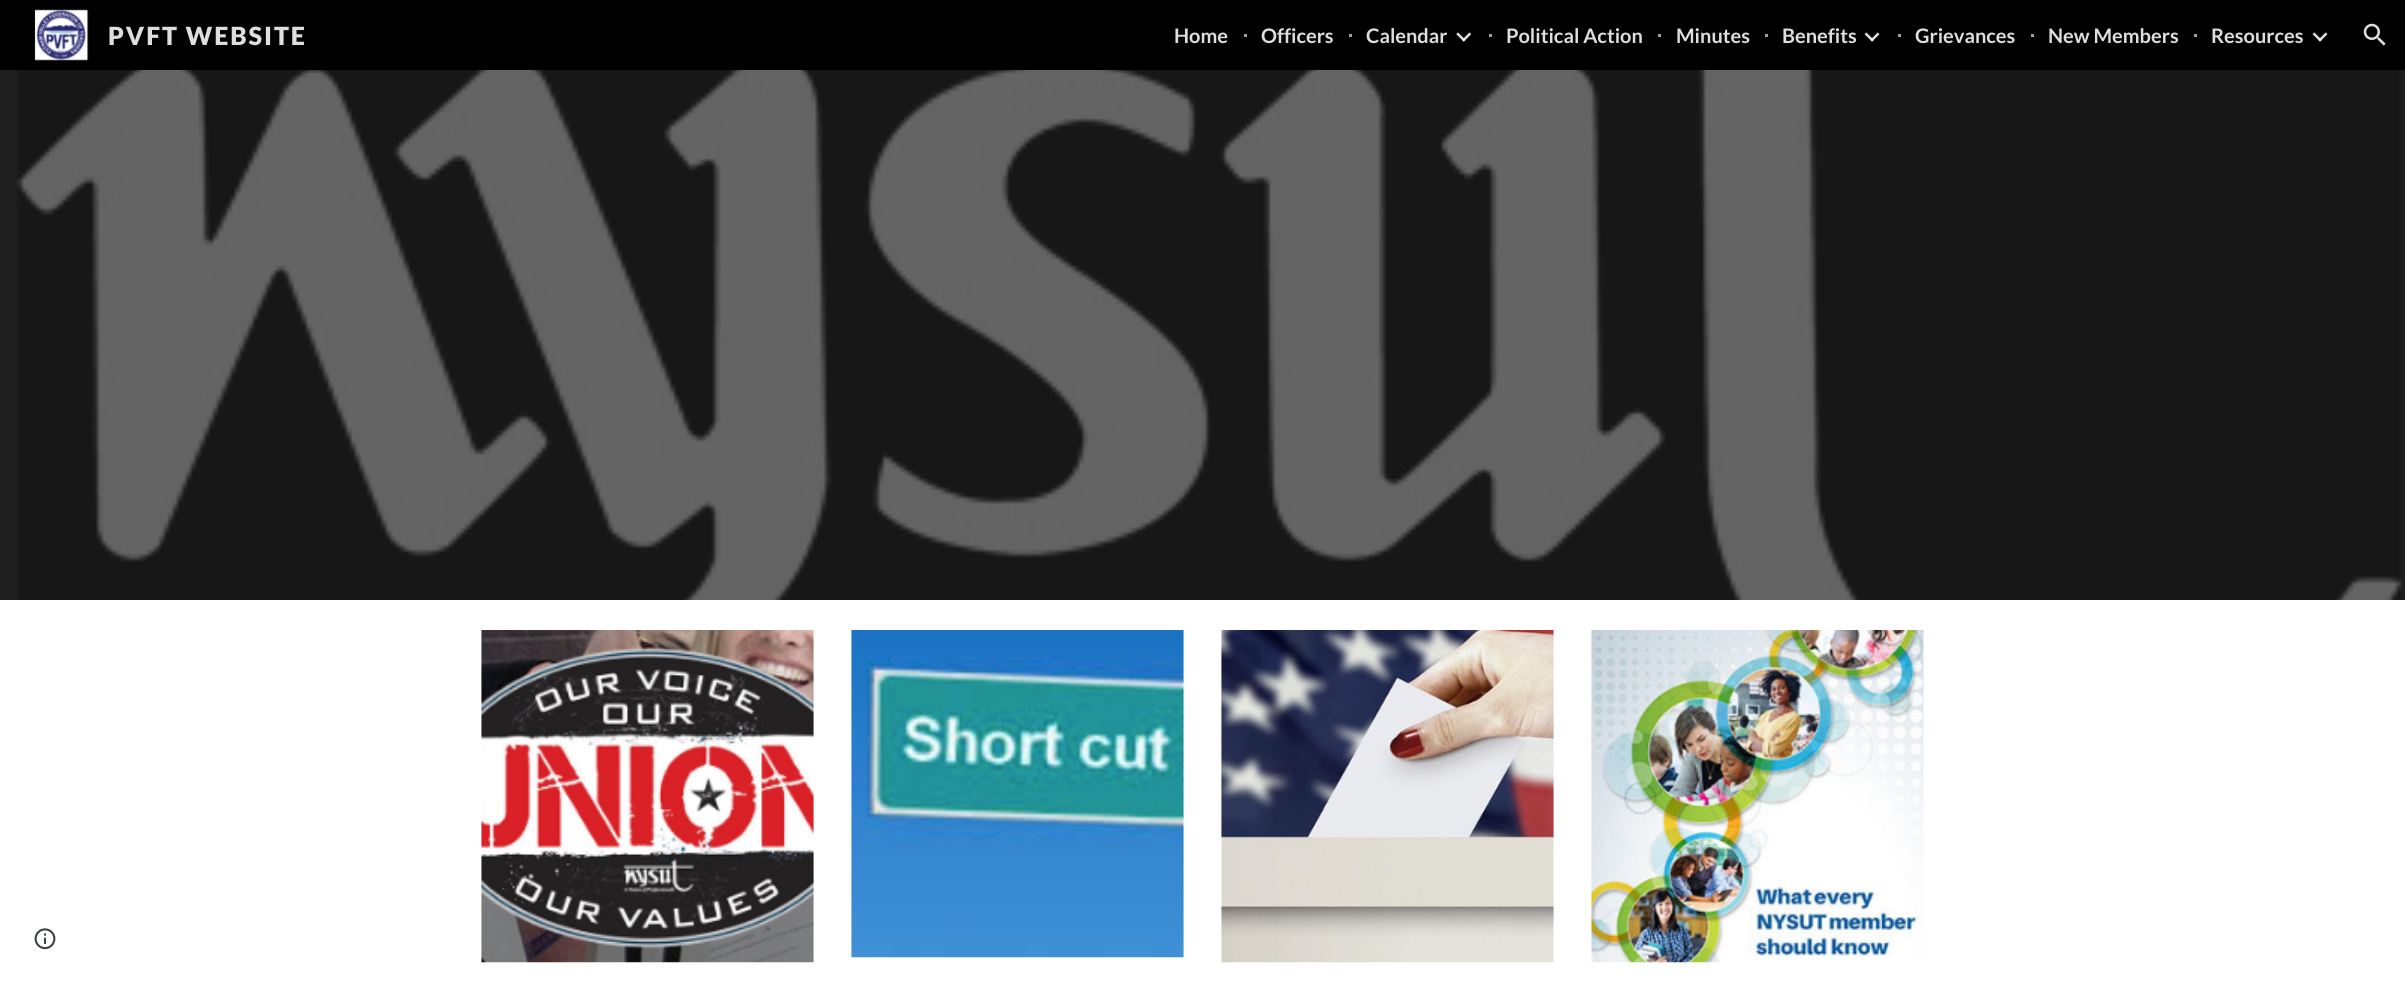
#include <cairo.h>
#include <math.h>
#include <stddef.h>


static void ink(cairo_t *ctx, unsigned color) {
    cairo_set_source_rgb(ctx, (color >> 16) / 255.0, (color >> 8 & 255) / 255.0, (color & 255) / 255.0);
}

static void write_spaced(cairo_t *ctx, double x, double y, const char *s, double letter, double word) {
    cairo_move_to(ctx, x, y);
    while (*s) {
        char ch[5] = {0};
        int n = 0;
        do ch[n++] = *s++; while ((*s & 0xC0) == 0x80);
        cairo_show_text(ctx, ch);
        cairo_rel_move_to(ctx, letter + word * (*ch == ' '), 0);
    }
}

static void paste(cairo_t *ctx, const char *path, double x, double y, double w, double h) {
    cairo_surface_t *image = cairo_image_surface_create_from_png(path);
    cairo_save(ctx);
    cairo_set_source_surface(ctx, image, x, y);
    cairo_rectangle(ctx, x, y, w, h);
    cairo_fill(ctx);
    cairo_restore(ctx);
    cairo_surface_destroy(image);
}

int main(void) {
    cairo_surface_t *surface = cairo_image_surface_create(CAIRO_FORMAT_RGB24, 2405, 981);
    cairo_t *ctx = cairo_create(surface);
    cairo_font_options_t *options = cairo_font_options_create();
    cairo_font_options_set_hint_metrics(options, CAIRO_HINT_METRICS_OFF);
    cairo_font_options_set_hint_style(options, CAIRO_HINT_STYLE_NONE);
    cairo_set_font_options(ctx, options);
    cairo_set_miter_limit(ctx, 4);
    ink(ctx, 0xFFFFFF);
    cairo_paint(ctx);
    ink(ctx, 0x000000);
    cairo_rectangle(ctx, 0, 0, 2405, 70);
    cairo_fill(ctx);
    paste(ctx, "media/1.png", 34, 9, 55, 52);
    cairo_select_font_face(ctx, "Lato Black", CAIRO_FONT_SLANT_NORMAL, CAIRO_FONT_WEIGHT_NORMAL);
    cairo_set_font_size(ctx, 25);
    ink(ctx, 0xDEDEDE);
    write_spaced(ctx, 108, 45, "PVFT WEBSITE", 1.9, 0);
    cairo_select_font_face(ctx, "Lato", CAIRO_FONT_SLANT_NORMAL, CAIRO_FONT_WEIGHT_BOLD);
    cairo_set_font_size(ctx, 20);
    cairo_move_to(ctx, 1174, 43);
    cairo_show_text(ctx, "Home");
    ink(ctx, 0x9E9E9E);
    cairo_rectangle(ctx, 1244, 34, 3, 3);
    cairo_fill(ctx);
    ink(ctx, 0xDEDEDE);
    cairo_move_to(ctx, 1261, 43);
    cairo_show_text(ctx, "Officers");
    ink(ctx, 0x9E9E9E);
    cairo_rectangle(ctx, 1349, 34, 3, 3);
    cairo_fill(ctx);
    ink(ctx, 0xDEDEDE);
    cairo_move_to(ctx, 1366, 43);
    cairo_show_text(ctx, "Calendar");
    paste(ctx, "media/2.png", 1456, 32, 16, 10);
    ink(ctx, 0x9E9E9E);
    cairo_rectangle(ctx, 1489, 34, 3, 3);
    cairo_fill(ctx);
    ink(ctx, 0xDEDEDE);
    cairo_move_to(ctx, 1506, 43);
    cairo_show_text(ctx, "Political Action");
    ink(ctx, 0x9E9E9E);
    cairo_rectangle(ctx, 1658, 34, 3, 3);
    cairo_fill(ctx);
    ink(ctx, 0xDEDEDE);
    cairo_move_to(ctx, 1676, 43);
    cairo_show_text(ctx, "Minutes");
    ink(ctx, 0x9E9E9E);
    cairo_rectangle(ctx, 1765, 34, 3, 3);
    cairo_fill(ctx);
    ink(ctx, 0xDEDEDE);
    cairo_move_to(ctx, 1782, 43);
    cairo_show_text(ctx, "Benefits");
    paste(ctx, "media/3.png", 1864, 32, 16, 10);
    ink(ctx, 0x9E9E9E);
    cairo_rectangle(ctx, 1898, 34, 3, 3);
    cairo_fill(ctx);
    ink(ctx, 0xDEDEDE);
    cairo_move_to(ctx, 1915, 43);
    cairo_show_text(ctx, "Grievances");
    ink(ctx, 0x9E9E9E);
    cairo_rectangle(ctx, 2031, 34, 3, 3);
    cairo_fill(ctx);
    ink(ctx, 0xDEDEDE);
    cairo_move_to(ctx, 2048, 43);
    cairo_show_text(ctx, "New Members");
    ink(ctx, 0x9E9E9E);
    cairo_rectangle(ctx, 2194, 34, 3, 3);
    cairo_fill(ctx);
    ink(ctx, 0xDEDEDE);
    cairo_move_to(ctx, 2211, 43);
    cairo_show_text(ctx, "Resources");
    paste(ctx, "media/4.png", 2312, 32, 16, 10);
    paste(ctx, "media/5.png", 2363, 23, 23, 23);
    paste(ctx, "media/6.png", 0, 70, 2405, 530);
    paste(ctx, "media/7.png", 481, 630, 333, 333);
    paste(ctx, "media/8.png", 851, 630, 333, 328);
    paste(ctx, "media/9.png", 1221, 630, 333, 333);
    paste(ctx, "media/10.png", 1591, 630, 333, 333);
    paste(ctx, "media/11.png", 34, 928, 22, 22);
    cairo_surface_write_to_png(surface, "image.png");
    cairo_font_options_destroy(options);
    cairo_destroy(ctx);
    cairo_surface_destroy(surface);
    return 0;
}
